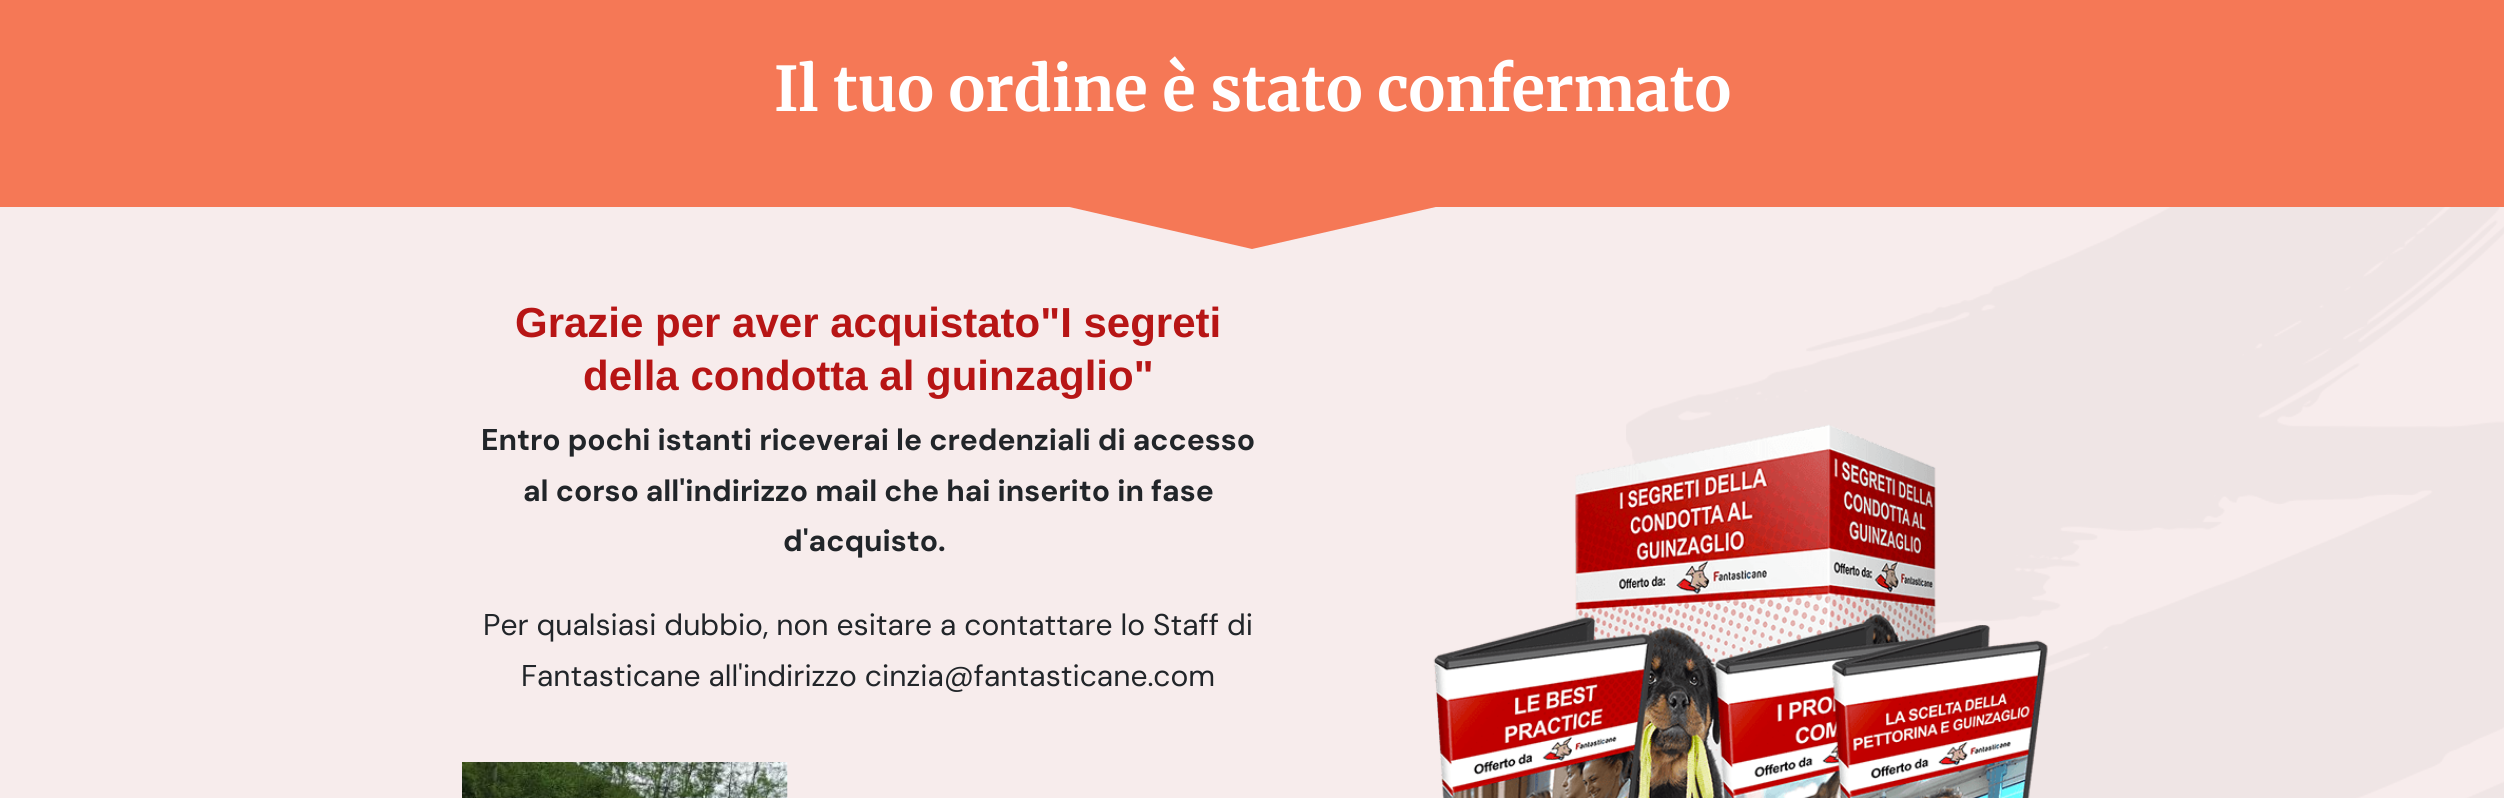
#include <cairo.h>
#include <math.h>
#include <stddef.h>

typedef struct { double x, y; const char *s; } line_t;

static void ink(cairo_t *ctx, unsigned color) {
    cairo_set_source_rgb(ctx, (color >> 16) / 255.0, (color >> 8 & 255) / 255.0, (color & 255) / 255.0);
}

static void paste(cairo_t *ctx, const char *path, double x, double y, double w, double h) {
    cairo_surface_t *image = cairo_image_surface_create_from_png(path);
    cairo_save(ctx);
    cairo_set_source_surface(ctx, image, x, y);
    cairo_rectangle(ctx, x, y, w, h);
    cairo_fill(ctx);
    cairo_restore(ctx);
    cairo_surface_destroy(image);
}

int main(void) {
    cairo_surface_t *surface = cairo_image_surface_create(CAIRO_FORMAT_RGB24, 2504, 798);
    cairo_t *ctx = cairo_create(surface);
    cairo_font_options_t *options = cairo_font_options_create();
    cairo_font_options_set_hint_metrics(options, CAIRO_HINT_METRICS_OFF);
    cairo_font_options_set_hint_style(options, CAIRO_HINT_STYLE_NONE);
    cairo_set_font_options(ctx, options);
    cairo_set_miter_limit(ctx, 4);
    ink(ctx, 0xF57856);
    cairo_paint(ctx);
    cairo_select_font_face(ctx, "Merriweather", CAIRO_FONT_SLANT_NORMAL, CAIRO_FONT_WEIGHT_BOLD);
    cairo_set_font_size(ctx, 61.5);
    ink(ctx, 0xFFFFFF);
    cairo_move_to(ctx, 774, 111);
    cairo_show_text(ctx, "Il tuo ordine è stato confermato");
    ink(ctx, 0xF7ECEC);
    cairo_rectangle(ctx, 0, 207, 2504, 591);
    cairo_fill(ctx);
    cairo_save(ctx);
    cairo_rectangle(ctx, 0, 207, 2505, 42);
    cairo_clip(ctx);
    ink(ctx, 0xF57856);
    cairo_set_fill_rule(ctx, CAIRO_FILL_RULE_EVEN_ODD);
    cairo_new_path(ctx);
    cairo_move_to(ctx, 1252, 249);
    cairo_line_to(ctx, 1065, 206);
    cairo_line_to(ctx, 1440, 206);
    cairo_close_path(ctx);
    cairo_fill(ctx);
    cairo_restore(ctx);
    paste(ctx, "media/1.png", 1626, 207, 878, 591);
    cairo_select_font_face(ctx, "Liberation Sans", CAIRO_FONT_SLANT_NORMAL, CAIRO_FONT_WEIGHT_BOLD);
    cairo_set_font_size(ctx, 42);
    ink(ctx, 0xB71515);
    cairo_move_to(ctx, 515, 337);
    cairo_show_text(ctx, "Grazie per aver acquistato\"I segreti");
    cairo_move_to(ctx, 583, 390);
    cairo_show_text(ctx, "della condotta al guinzaglio\"");
    cairo_select_font_face(ctx, "DM Sans", CAIRO_FONT_SLANT_NORMAL, CAIRO_FONT_WEIGHT_BOLD);
    cairo_set_font_size(ctx, 30);
    ink(ctx, 0x212529);
    {
        static const line_t items[] = {
            {481, 450, "Entro pochi istanti riceverai le credenziali di accesso"},
            {523, 501, "al corso all'indirizzo mail che hai inserito in fase"},
            {783, 551, "d'acquisto."},
        };
        for (size_t i = 0; i < sizeof items / sizeof *items; i++) {
            cairo_move_to(ctx, items[i].x, items[i].y);
            cairo_show_text(ctx, items[i].s);
        }
    }
    cairo_select_font_face(ctx, "DM Sans", CAIRO_FONT_SLANT_NORMAL, CAIRO_FONT_WEIGHT_NORMAL);
    cairo_move_to(ctx, 483, 635);
    cairo_show_text(ctx, "Per qualsiasi dubbio, non esitare a contattare lo Staff di");
    cairo_move_to(ctx, 521, 686);
    cairo_show_text(ctx, "Fantasticane all'indirizzo cinzia@fantasticane.com");
    paste(ctx, "media/2.png", 462, 762, 326, 36);
    paste(ctx, "media/3.png", 1433, 424, 615, 374);
    cairo_surface_write_to_png(surface, "image.png");
    cairo_font_options_destroy(options);
    cairo_destroy(ctx);
    cairo_surface_destroy(surface);
    return 0;
}
